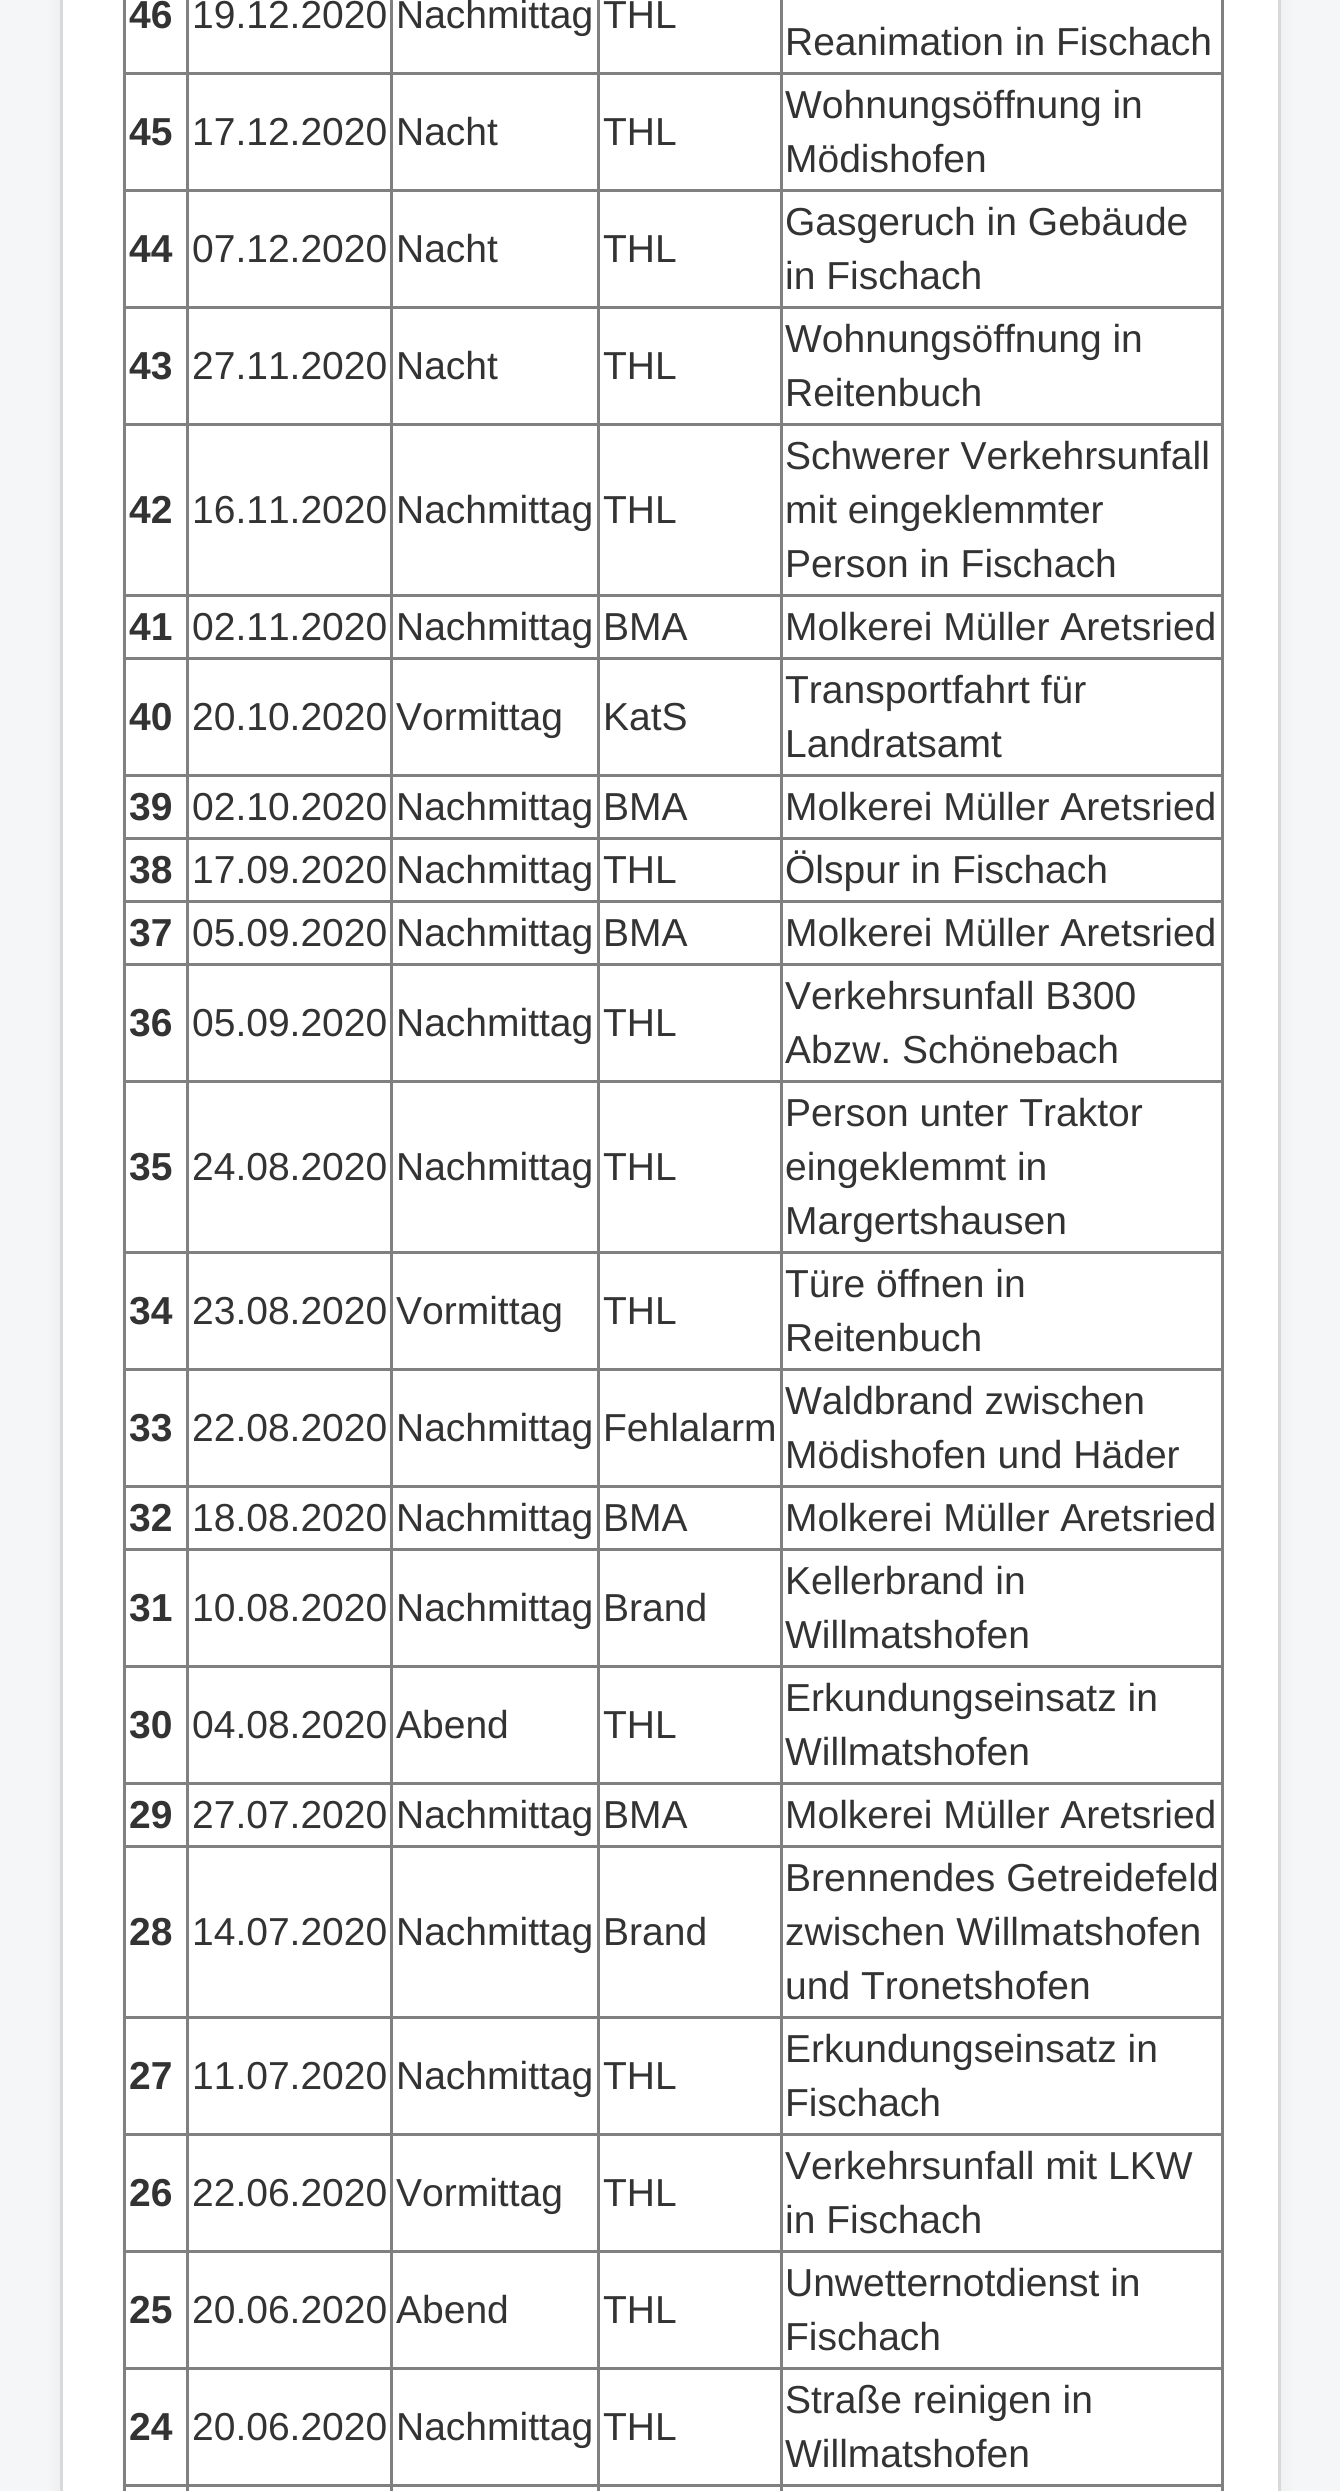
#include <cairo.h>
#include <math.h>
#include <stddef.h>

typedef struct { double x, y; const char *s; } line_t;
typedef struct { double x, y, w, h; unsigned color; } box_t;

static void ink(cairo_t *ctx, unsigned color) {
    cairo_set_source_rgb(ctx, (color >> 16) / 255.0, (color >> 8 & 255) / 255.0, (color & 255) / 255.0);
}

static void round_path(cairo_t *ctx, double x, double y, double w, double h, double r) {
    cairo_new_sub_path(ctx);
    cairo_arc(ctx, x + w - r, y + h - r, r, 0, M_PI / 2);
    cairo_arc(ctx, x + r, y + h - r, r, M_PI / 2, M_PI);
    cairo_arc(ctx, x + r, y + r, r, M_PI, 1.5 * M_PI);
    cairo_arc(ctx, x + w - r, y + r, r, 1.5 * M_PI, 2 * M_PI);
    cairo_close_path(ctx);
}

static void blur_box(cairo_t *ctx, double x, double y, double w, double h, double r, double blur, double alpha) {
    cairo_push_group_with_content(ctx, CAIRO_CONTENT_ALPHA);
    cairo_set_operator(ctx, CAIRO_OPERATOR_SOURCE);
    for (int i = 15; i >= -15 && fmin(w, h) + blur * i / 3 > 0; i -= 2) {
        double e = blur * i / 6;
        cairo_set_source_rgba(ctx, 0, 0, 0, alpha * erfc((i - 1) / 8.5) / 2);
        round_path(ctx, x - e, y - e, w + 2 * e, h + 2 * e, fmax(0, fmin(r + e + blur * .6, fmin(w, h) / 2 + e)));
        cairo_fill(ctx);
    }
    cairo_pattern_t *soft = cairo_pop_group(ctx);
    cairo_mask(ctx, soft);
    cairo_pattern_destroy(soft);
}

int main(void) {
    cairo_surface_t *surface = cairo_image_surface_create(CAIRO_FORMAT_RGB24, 1340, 2491);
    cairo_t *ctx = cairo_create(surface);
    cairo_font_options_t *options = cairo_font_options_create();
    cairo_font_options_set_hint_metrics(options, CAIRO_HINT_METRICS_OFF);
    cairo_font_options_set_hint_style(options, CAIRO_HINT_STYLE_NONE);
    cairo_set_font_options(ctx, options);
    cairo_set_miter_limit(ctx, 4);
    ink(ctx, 0xF4F6F7);
    cairo_paint(ctx);
    ink(ctx, 0x000000);
    blur_box(ctx, 60, -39, 1221, 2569, 12, 9, 0.05);
    ink(ctx, 0xFFFFFF);
    cairo_rectangle(ctx, 61.5, -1.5, 1218, 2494);
    cairo_fill_preserve(ctx);
    ink(ctx, 0xD9D9D9);
    cairo_set_line_width(ctx, 3);
    cairo_stroke(ctx);
    ink(ctx, 0x808080);
    cairo_rectangle(ctx, 1221, 0, 3, 2491);
    cairo_fill(ctx);
    cairo_rectangle(ctx, 123, 0, 3, 2491);
    cairo_fill(ctx);
    cairo_select_font_face(ctx, "Liberation Sans", CAIRO_FONT_SLANT_NORMAL, CAIRO_FONT_WEIGHT_BOLD);
    cairo_set_font_size(ctx, 39);
    ink(ctx, 0x333333);
    cairo_move_to(ctx, 129, 28);
    cairo_show_text(ctx, "46");
    {
        static const box_t items[] = {
            {780, 72, 444, 3, 0x808080},
            {780, 189, 444, 3, 0x808080},
            {780, 306, 444, 3, 0x808080},
            {780, 423, 444, 3, 0x808080},
            {780, 594, 444, 3, 0x808080},
            {780, 657, 444, 3, 0x808080},
            {780, 774, 444, 3, 0x808080},
            {780, 837, 444, 3, 0x808080},
            {780, 900, 444, 3, 0x808080},
            {780, 963, 444, 3, 0x808080},
            {780, 1080, 444, 3, 0x808080},
            {780, 1251, 444, 3, 0x808080},
            {780, 1368, 444, 3, 0x808080},
            {780, 1485, 444, 3, 0x808080},
            {780, 1548, 444, 3, 0x808080},
            {780, 1665, 444, 3, 0x808080},
            {780, 1782, 444, 3, 0x808080},
            {780, 1845, 444, 3, 0x808080},
            {780, 2016, 444, 3, 0x808080},
            {780, 2133, 444, 3, 0x808080},
            {780, 2250, 444, 3, 0x808080},
            {780, 2367, 444, 3, 0x808080},
            {780, 2484, 444, 3, 0x808080},
            {780, 2484, 3, 7, 0x808080},
            {597, 2484, 186, 3, 0x808080},
            {780, 2367, 3, 120, 0x808080},
            {597, 2367, 186, 3, 0x808080},
            {780, 2250, 3, 120, 0x808080},
            {597, 2250, 186, 3, 0x808080},
            {780, 2133, 3, 120, 0x808080},
            {597, 2133, 186, 3, 0x808080},
            {780, 2016, 3, 120, 0x808080},
            {597, 2016, 186, 3, 0x808080},
            {780, 1845, 3, 174, 0x808080},
            {597, 1845, 186, 3, 0x808080},
            {780, 1782, 3, 66, 0x808080},
            {597, 1782, 186, 3, 0x808080},
            {780, 1665, 3, 120, 0x808080},
            {597, 1665, 186, 3, 0x808080},
            {780, 1548, 3, 120, 0x808080},
            {597, 1548, 186, 3, 0x808080},
            {780, 1485, 3, 66, 0x808080},
            {597, 1485, 186, 3, 0x808080},
            {780, 1368, 3, 120, 0x808080},
            {597, 1368, 186, 3, 0x808080},
            {780, 1251, 3, 120, 0x808080},
            {597, 1251, 186, 3, 0x808080},
            {780, 1080, 3, 174, 0x808080},
            {597, 1080, 186, 3, 0x808080},
            {780, 963, 3, 120, 0x808080},
            {597, 963, 186, 3, 0x808080},
            {780, 900, 3, 66, 0x808080},
            {597, 900, 186, 3, 0x808080},
            {780, 837, 3, 66, 0x808080},
            {597, 837, 186, 3, 0x808080},
            {780, 774, 3, 66, 0x808080},
            {597, 774, 186, 3, 0x808080},
            {780, 657, 3, 120, 0x808080},
            {597, 657, 186, 3, 0x808080},
            {780, 594, 3, 66, 0x808080},
            {597, 594, 186, 3, 0x808080},
            {780, 423, 3, 174, 0x808080},
            {597, 423, 186, 3, 0x808080},
            {780, 306, 3, 120, 0x808080},
            {597, 306, 186, 3, 0x808080},
            {780, 189, 3, 120, 0x808080},
            {597, 189, 186, 3, 0x808080},
            {780, 72, 3, 120, 0x808080},
            {597, 72, 186, 3, 0x808080},
            {597, 2484, 3, 7, 0x808080},
            {390, 2484, 210, 3, 0x808080},
            {597, 2367, 3, 120, 0x808080},
            {390, 2367, 210, 3, 0x808080},
            {597, 2250, 3, 120, 0x808080},
            {390, 2250, 210, 3, 0x808080},
            {597, 2133, 3, 120, 0x808080},
            {390, 2133, 210, 3, 0x808080},
            {597, 2016, 3, 120, 0x808080},
            {390, 2016, 210, 3, 0x808080},
            {597, 1845, 3, 174, 0x808080},
            {390, 1845, 210, 3, 0x808080},
            {597, 1782, 3, 66, 0x808080},
            {390, 1782, 210, 3, 0x808080},
            {597, 1665, 3, 120, 0x808080},
            {390, 1665, 210, 3, 0x808080},
            {597, 1548, 3, 120, 0x808080},
            {390, 1548, 210, 3, 0x808080},
            {597, 1485, 3, 66, 0x808080},
            {390, 1485, 210, 3, 0x808080},
            {597, 1368, 3, 120, 0x808080},
            {390, 1368, 210, 3, 0x808080},
            {597, 1251, 3, 120, 0x808080},
            {390, 1251, 210, 3, 0x808080},
            {597, 1080, 3, 174, 0x808080},
            {390, 1080, 210, 3, 0x808080},
            {597, 963, 3, 120, 0x808080},
            {390, 963, 210, 3, 0x808080},
            {597, 900, 3, 66, 0x808080},
            {390, 900, 210, 3, 0x808080},
            {597, 837, 3, 66, 0x808080},
            {390, 837, 210, 3, 0x808080},
            {597, 774, 3, 66, 0x808080},
            {390, 774, 210, 3, 0x808080},
            {597, 657, 3, 120, 0x808080},
            {390, 657, 210, 3, 0x808080},
            {597, 594, 3, 66, 0x808080},
            {390, 594, 210, 3, 0x808080},
            {597, 423, 3, 174, 0x808080},
            {390, 423, 210, 3, 0x808080},
            {597, 306, 3, 120, 0x808080},
            {390, 306, 210, 3, 0x808080},
            {597, 189, 3, 120, 0x808080},
            {390, 189, 210, 3, 0x808080},
            {597, 72, 3, 120, 0x808080},
            {390, 72, 210, 3, 0x808080},
            {390, 2484, 3, 7, 0x808080},
            {186, 2484, 207, 3, 0x808080},
            {390, 2367, 3, 120, 0x808080},
            {186, 2367, 207, 3, 0x808080},
            {390, 2250, 3, 120, 0x808080},
            {186, 2250, 207, 3, 0x808080},
            {390, 2133, 3, 120, 0x808080},
            {186, 2133, 207, 3, 0x808080},
            {390, 2016, 3, 120, 0x808080},
            {186, 2016, 207, 3, 0x808080},
            {390, 1845, 3, 174, 0x808080},
            {186, 1845, 207, 3, 0x808080},
            {390, 1782, 3, 66, 0x808080},
            {186, 1782, 207, 3, 0x808080},
            {390, 1665, 3, 120, 0x808080},
            {186, 1665, 207, 3, 0x808080},
            {390, 1548, 3, 120, 0x808080},
            {186, 1548, 207, 3, 0x808080},
            {390, 1485, 3, 66, 0x808080},
            {186, 1485, 207, 3, 0x808080},
            {390, 1368, 3, 120, 0x808080},
            {186, 1368, 207, 3, 0x808080},
            {390, 1251, 3, 120, 0x808080},
            {186, 1251, 207, 3, 0x808080},
            {390, 1080, 3, 174, 0x808080},
            {186, 1080, 207, 3, 0x808080},
            {390, 963, 3, 120, 0x808080},
            {186, 963, 207, 3, 0x808080},
            {390, 900, 3, 66, 0x808080},
            {186, 900, 207, 3, 0x808080},
            {390, 837, 3, 66, 0x808080},
            {186, 837, 207, 3, 0x808080},
            {390, 774, 3, 66, 0x808080},
            {186, 774, 207, 3, 0x808080},
            {390, 657, 3, 120, 0x808080},
            {186, 657, 207, 3, 0x808080},
            {390, 594, 3, 66, 0x808080},
            {186, 594, 207, 3, 0x808080},
            {390, 423, 3, 174, 0x808080},
            {186, 423, 207, 3, 0x808080},
            {390, 306, 3, 120, 0x808080},
            {186, 306, 207, 3, 0x808080},
            {390, 189, 3, 120, 0x808080},
            {186, 189, 207, 3, 0x808080},
            {390, 72, 3, 120, 0x808080},
            {186, 72, 207, 3, 0x808080},
            {186, 2484, 3, 7, 0x808080},
            {123, 2484, 66, 3, 0x808080},
            {186, 2367, 3, 120, 0x808080},
            {123, 2367, 66, 3, 0x808080},
            {186, 2250, 3, 120, 0x808080},
            {123, 2250, 66, 3, 0x808080},
            {186, 2133, 3, 120, 0x808080},
            {123, 2133, 66, 3, 0x808080},
            {186, 2016, 3, 120, 0x808080},
            {123, 2016, 66, 3, 0x808080},
            {186, 1845, 3, 174, 0x808080},
            {123, 1845, 66, 3, 0x808080},
            {186, 1782, 3, 66, 0x808080},
            {123, 1782, 66, 3, 0x808080},
            {186, 1665, 3, 120, 0x808080},
            {123, 1665, 66, 3, 0x808080},
            {186, 1548, 3, 120, 0x808080},
            {123, 1548, 66, 3, 0x808080},
            {186, 1485, 3, 66, 0x808080},
            {123, 1485, 66, 3, 0x808080},
            {186, 1368, 3, 120, 0x808080},
            {123, 1368, 66, 3, 0x808080},
            {186, 1251, 3, 120, 0x808080},
            {123, 1251, 66, 3, 0x808080},
            {186, 1080, 3, 174, 0x808080},
            {123, 1080, 66, 3, 0x808080},
            {186, 963, 3, 120, 0x808080},
            {123, 963, 66, 3, 0x808080},
            {186, 900, 3, 66, 0x808080},
            {123, 900, 66, 3, 0x808080},
            {186, 837, 3, 66, 0x808080},
            {123, 837, 66, 3, 0x808080},
            {186, 774, 3, 66, 0x808080},
            {123, 774, 66, 3, 0x808080},
            {186, 657, 3, 120, 0x808080},
            {123, 657, 66, 3, 0x808080},
            {186, 594, 3, 66, 0x808080},
            {123, 594, 66, 3, 0x808080},
            {186, 423, 3, 174, 0x808080},
            {123, 423, 66, 3, 0x808080},
            {186, 306, 3, 120, 0x808080},
            {123, 306, 66, 3, 0x808080},
            {186, 189, 3, 120, 0x808080},
            {123, 189, 66, 3, 0x808080},
            {186, 72, 3, 120, 0x808080},
            {123, 72, 66, 3, 0x808080},
            {186, 0, 3, 75, 0x808080},
        };
        for (size_t i = 0; i < sizeof items / sizeof *items; i++) {
            ink(ctx, items[i].color);
            cairo_rectangle(ctx, items[i].x, items[i].y, items[i].w, items[i].h);
            cairo_fill(ctx);
        }
    }
    cairo_select_font_face(ctx, "Liberation Sans", CAIRO_FONT_SLANT_NORMAL, CAIRO_FONT_WEIGHT_NORMAL);
    ink(ctx, 0x333333);
    cairo_move_to(ctx, 192, 28);
    cairo_show_text(ctx, "19.12.2020");
    ink(ctx, 0x808080);
    cairo_rectangle(ctx, 390, 0, 3, 75);
    cairo_fill(ctx);
    ink(ctx, 0x333333);
    cairo_move_to(ctx, 396, 28);
    cairo_show_text(ctx, "Nachmittag");
    ink(ctx, 0x808080);
    cairo_rectangle(ctx, 597, 0, 3, 75);
    cairo_fill(ctx);
    ink(ctx, 0x333333);
    cairo_move_to(ctx, 603, 28);
    cairo_show_text(ctx, "THL");
    ink(ctx, 0x808080);
    cairo_rectangle(ctx, 780, 0, 3, 75);
    cairo_fill(ctx);
    ink(ctx, 0x333333);
    cairo_move_to(ctx, 785, 55);
    cairo_show_text(ctx, "Reanimation in Fischach");
    cairo_select_font_face(ctx, "Liberation Sans", CAIRO_FONT_SLANT_NORMAL, CAIRO_FONT_WEIGHT_BOLD);
    cairo_move_to(ctx, 129, 145);
    cairo_show_text(ctx, "45");
    cairo_select_font_face(ctx, "Liberation Sans", CAIRO_FONT_SLANT_NORMAL, CAIRO_FONT_WEIGHT_NORMAL);
    {
        static const line_t items[] = {
            {192, 145, "17.12.2020"},
            {396, 145, "Nacht"},
            {603, 145, "THL"},
            {785, 118, "Wohnungsöffnung in"},
            {785, 172, "Mödishofen"},
        };
        for (size_t i = 0; i < sizeof items / sizeof *items; i++) {
            cairo_move_to(ctx, items[i].x, items[i].y);
            cairo_show_text(ctx, items[i].s);
        }
    }
    cairo_select_font_face(ctx, "Liberation Sans", CAIRO_FONT_SLANT_NORMAL, CAIRO_FONT_WEIGHT_BOLD);
    cairo_move_to(ctx, 129, 262);
    cairo_show_text(ctx, "44");
    cairo_select_font_face(ctx, "Liberation Sans", CAIRO_FONT_SLANT_NORMAL, CAIRO_FONT_WEIGHT_NORMAL);
    {
        static const line_t items[] = {
            {192, 262, "07.12.2020"},
            {396, 262, "Nacht"},
            {603, 262, "THL"},
            {785, 235, "Gasgeruch in Gebäude"},
            {785, 289, "in Fischach"},
        };
        for (size_t i = 0; i < sizeof items / sizeof *items; i++) {
            cairo_move_to(ctx, items[i].x, items[i].y);
            cairo_show_text(ctx, items[i].s);
        }
    }
    cairo_select_font_face(ctx, "Liberation Sans", CAIRO_FONT_SLANT_NORMAL, CAIRO_FONT_WEIGHT_BOLD);
    cairo_move_to(ctx, 129, 379);
    cairo_show_text(ctx, "43");
    cairo_select_font_face(ctx, "Liberation Sans", CAIRO_FONT_SLANT_NORMAL, CAIRO_FONT_WEIGHT_NORMAL);
    {
        static const line_t items[] = {
            {192, 379, "27.11.2020"},
            {396, 379, "Nacht"},
            {603, 379, "THL"},
            {785, 352, "Wohnungsöffnung in"},
            {785, 406, "Reitenbuch"},
        };
        for (size_t i = 0; i < sizeof items / sizeof *items; i++) {
            cairo_move_to(ctx, items[i].x, items[i].y);
            cairo_show_text(ctx, items[i].s);
        }
    }
    cairo_select_font_face(ctx, "Liberation Sans", CAIRO_FONT_SLANT_NORMAL, CAIRO_FONT_WEIGHT_BOLD);
    cairo_move_to(ctx, 129, 523);
    cairo_show_text(ctx, "42");
    cairo_select_font_face(ctx, "Liberation Sans", CAIRO_FONT_SLANT_NORMAL, CAIRO_FONT_WEIGHT_NORMAL);
    {
        static const line_t items[] = {
            {192, 523, "16.11.2020"},
            {396, 523, "Nachmittag"},
            {603, 523, "THL"},
            {785, 469, "Schwerer Verkehrsunfall"},
            {785, 523, "mit eingeklemmter"},
            {785, 577, "Person in Fischach"},
        };
        for (size_t i = 0; i < sizeof items / sizeof *items; i++) {
            cairo_move_to(ctx, items[i].x, items[i].y);
            cairo_show_text(ctx, items[i].s);
        }
    }
    cairo_select_font_face(ctx, "Liberation Sans", CAIRO_FONT_SLANT_NORMAL, CAIRO_FONT_WEIGHT_BOLD);
    cairo_move_to(ctx, 129, 640);
    cairo_show_text(ctx, "41");
    cairo_select_font_face(ctx, "Liberation Sans", CAIRO_FONT_SLANT_NORMAL, CAIRO_FONT_WEIGHT_NORMAL);
    {
        static const line_t items[] = {
            {192, 640, "02.11.2020"},
            {396, 640, "Nachmittag"},
            {603, 640, "BMA"},
            {785, 640, "Molkerei Müller Aretsried"},
        };
        for (size_t i = 0; i < sizeof items / sizeof *items; i++) {
            cairo_move_to(ctx, items[i].x, items[i].y);
            cairo_show_text(ctx, items[i].s);
        }
    }
    cairo_select_font_face(ctx, "Liberation Sans", CAIRO_FONT_SLANT_NORMAL, CAIRO_FONT_WEIGHT_BOLD);
    cairo_move_to(ctx, 129, 730);
    cairo_show_text(ctx, "40");
    cairo_select_font_face(ctx, "Liberation Sans", CAIRO_FONT_SLANT_NORMAL, CAIRO_FONT_WEIGHT_NORMAL);
    {
        static const line_t items[] = {
            {192, 730, "20.10.2020"},
            {396, 730, "Vormittag"},
            {603, 730, "KatS"},
            {785, 703, "Transportfahrt für"},
            {785, 757, "Landratsamt"},
        };
        for (size_t i = 0; i < sizeof items / sizeof *items; i++) {
            cairo_move_to(ctx, items[i].x, items[i].y);
            cairo_show_text(ctx, items[i].s);
        }
    }
    cairo_select_font_face(ctx, "Liberation Sans", CAIRO_FONT_SLANT_NORMAL, CAIRO_FONT_WEIGHT_BOLD);
    cairo_move_to(ctx, 129, 820);
    cairo_show_text(ctx, "39");
    cairo_select_font_face(ctx, "Liberation Sans", CAIRO_FONT_SLANT_NORMAL, CAIRO_FONT_WEIGHT_NORMAL);
    {
        static const line_t items[] = {
            {192, 820, "02.10.2020"},
            {396, 820, "Nachmittag"},
            {603, 820, "BMA"},
            {785, 820, "Molkerei Müller Aretsried"},
        };
        for (size_t i = 0; i < sizeof items / sizeof *items; i++) {
            cairo_move_to(ctx, items[i].x, items[i].y);
            cairo_show_text(ctx, items[i].s);
        }
    }
    cairo_select_font_face(ctx, "Liberation Sans", CAIRO_FONT_SLANT_NORMAL, CAIRO_FONT_WEIGHT_BOLD);
    cairo_move_to(ctx, 129, 883);
    cairo_show_text(ctx, "38");
    cairo_select_font_face(ctx, "Liberation Sans", CAIRO_FONT_SLANT_NORMAL, CAIRO_FONT_WEIGHT_NORMAL);
    {
        static const line_t items[] = {
            {192, 883, "17.09.2020"},
            {396, 883, "Nachmittag"},
            {603, 883, "THL"},
            {785, 883, "Ölspur in Fischach"},
        };
        for (size_t i = 0; i < sizeof items / sizeof *items; i++) {
            cairo_move_to(ctx, items[i].x, items[i].y);
            cairo_show_text(ctx, items[i].s);
        }
    }
    cairo_select_font_face(ctx, "Liberation Sans", CAIRO_FONT_SLANT_NORMAL, CAIRO_FONT_WEIGHT_BOLD);
    cairo_move_to(ctx, 129, 946);
    cairo_show_text(ctx, "37");
    cairo_select_font_face(ctx, "Liberation Sans", CAIRO_FONT_SLANT_NORMAL, CAIRO_FONT_WEIGHT_NORMAL);
    {
        static const line_t items[] = {
            {192, 946, "05.09.2020"},
            {396, 946, "Nachmittag"},
            {603, 946, "BMA"},
            {785, 946, "Molkerei Müller Aretsried"},
        };
        for (size_t i = 0; i < sizeof items / sizeof *items; i++) {
            cairo_move_to(ctx, items[i].x, items[i].y);
            cairo_show_text(ctx, items[i].s);
        }
    }
    cairo_select_font_face(ctx, "Liberation Sans", CAIRO_FONT_SLANT_NORMAL, CAIRO_FONT_WEIGHT_BOLD);
    cairo_move_to(ctx, 129, 1036);
    cairo_show_text(ctx, "36");
    cairo_select_font_face(ctx, "Liberation Sans", CAIRO_FONT_SLANT_NORMAL, CAIRO_FONT_WEIGHT_NORMAL);
    {
        static const line_t items[] = {
            {192, 1036, "05.09.2020"},
            {396, 1036, "Nachmittag"},
            {603, 1036, "THL"},
            {785, 1009, "Verkehrsunfall B300"},
            {785, 1063, "Abzw. Schönebach"},
        };
        for (size_t i = 0; i < sizeof items / sizeof *items; i++) {
            cairo_move_to(ctx, items[i].x, items[i].y);
            cairo_show_text(ctx, items[i].s);
        }
    }
    cairo_select_font_face(ctx, "Liberation Sans", CAIRO_FONT_SLANT_NORMAL, CAIRO_FONT_WEIGHT_BOLD);
    cairo_move_to(ctx, 129, 1180);
    cairo_show_text(ctx, "35");
    cairo_select_font_face(ctx, "Liberation Sans", CAIRO_FONT_SLANT_NORMAL, CAIRO_FONT_WEIGHT_NORMAL);
    {
        static const line_t items[] = {
            {192, 1180, "24.08.2020"},
            {396, 1180, "Nachmittag"},
            {603, 1180, "THL"},
            {785, 1126, "Person unter Traktor"},
            {785, 1180, "eingeklemmt in"},
            {785, 1234, "Margertshausen"},
        };
        for (size_t i = 0; i < sizeof items / sizeof *items; i++) {
            cairo_move_to(ctx, items[i].x, items[i].y);
            cairo_show_text(ctx, items[i].s);
        }
    }
    cairo_select_font_face(ctx, "Liberation Sans", CAIRO_FONT_SLANT_NORMAL, CAIRO_FONT_WEIGHT_BOLD);
    cairo_move_to(ctx, 129, 1324);
    cairo_show_text(ctx, "34");
    cairo_select_font_face(ctx, "Liberation Sans", CAIRO_FONT_SLANT_NORMAL, CAIRO_FONT_WEIGHT_NORMAL);
    {
        static const line_t items[] = {
            {192, 1324, "23.08.2020"},
            {396, 1324, "Vormittag"},
            {603, 1324, "THL"},
            {785, 1297, "Türe öffnen in"},
            {785, 1351, "Reitenbuch"},
        };
        for (size_t i = 0; i < sizeof items / sizeof *items; i++) {
            cairo_move_to(ctx, items[i].x, items[i].y);
            cairo_show_text(ctx, items[i].s);
        }
    }
    cairo_select_font_face(ctx, "Liberation Sans", CAIRO_FONT_SLANT_NORMAL, CAIRO_FONT_WEIGHT_BOLD);
    cairo_move_to(ctx, 129, 1441);
    cairo_show_text(ctx, "33");
    cairo_select_font_face(ctx, "Liberation Sans", CAIRO_FONT_SLANT_NORMAL, CAIRO_FONT_WEIGHT_NORMAL);
    {
        static const line_t items[] = {
            {192, 1441, "22.08.2020"},
            {396, 1441, "Nachmittag"},
            {603, 1441, "Fehlalarm"},
            {785, 1414, "Waldbrand zwischen"},
            {785, 1468, "Mödishofen und Häder"},
        };
        for (size_t i = 0; i < sizeof items / sizeof *items; i++) {
            cairo_move_to(ctx, items[i].x, items[i].y);
            cairo_show_text(ctx, items[i].s);
        }
    }
    cairo_select_font_face(ctx, "Liberation Sans", CAIRO_FONT_SLANT_NORMAL, CAIRO_FONT_WEIGHT_BOLD);
    cairo_move_to(ctx, 129, 1531);
    cairo_show_text(ctx, "32");
    cairo_select_font_face(ctx, "Liberation Sans", CAIRO_FONT_SLANT_NORMAL, CAIRO_FONT_WEIGHT_NORMAL);
    {
        static const line_t items[] = {
            {192, 1531, "18.08.2020"},
            {396, 1531, "Nachmittag"},
            {603, 1531, "BMA"},
            {785, 1531, "Molkerei Müller Aretsried"},
        };
        for (size_t i = 0; i < sizeof items / sizeof *items; i++) {
            cairo_move_to(ctx, items[i].x, items[i].y);
            cairo_show_text(ctx, items[i].s);
        }
    }
    cairo_select_font_face(ctx, "Liberation Sans", CAIRO_FONT_SLANT_NORMAL, CAIRO_FONT_WEIGHT_BOLD);
    cairo_move_to(ctx, 129, 1621);
    cairo_show_text(ctx, "31");
    cairo_select_font_face(ctx, "Liberation Sans", CAIRO_FONT_SLANT_NORMAL, CAIRO_FONT_WEIGHT_NORMAL);
    {
        static const line_t items[] = {
            {192, 1621, "10.08.2020"},
            {396, 1621, "Nachmittag"},
            {603, 1621, "Brand"},
            {785, 1594, "Kellerbrand in"},
            {785, 1648, "Willmatshofen"},
        };
        for (size_t i = 0; i < sizeof items / sizeof *items; i++) {
            cairo_move_to(ctx, items[i].x, items[i].y);
            cairo_show_text(ctx, items[i].s);
        }
    }
    cairo_select_font_face(ctx, "Liberation Sans", CAIRO_FONT_SLANT_NORMAL, CAIRO_FONT_WEIGHT_BOLD);
    cairo_move_to(ctx, 129, 1738);
    cairo_show_text(ctx, "30");
    cairo_select_font_face(ctx, "Liberation Sans", CAIRO_FONT_SLANT_NORMAL, CAIRO_FONT_WEIGHT_NORMAL);
    {
        static const line_t items[] = {
            {192, 1738, "04.08.2020"},
            {396, 1738, "Abend"},
            {603, 1738, "THL"},
            {785, 1711, "Erkundungseinsatz in"},
            {785, 1765, "Willmatshofen"},
        };
        for (size_t i = 0; i < sizeof items / sizeof *items; i++) {
            cairo_move_to(ctx, items[i].x, items[i].y);
            cairo_show_text(ctx, items[i].s);
        }
    }
    cairo_select_font_face(ctx, "Liberation Sans", CAIRO_FONT_SLANT_NORMAL, CAIRO_FONT_WEIGHT_BOLD);
    cairo_move_to(ctx, 129, 1828);
    cairo_show_text(ctx, "29");
    cairo_select_font_face(ctx, "Liberation Sans", CAIRO_FONT_SLANT_NORMAL, CAIRO_FONT_WEIGHT_NORMAL);
    {
        static const line_t items[] = {
            {192, 1828, "27.07.2020"},
            {396, 1828, "Nachmittag"},
            {603, 1828, "BMA"},
            {785, 1828, "Molkerei Müller Aretsried"},
        };
        for (size_t i = 0; i < sizeof items / sizeof *items; i++) {
            cairo_move_to(ctx, items[i].x, items[i].y);
            cairo_show_text(ctx, items[i].s);
        }
    }
    cairo_select_font_face(ctx, "Liberation Sans", CAIRO_FONT_SLANT_NORMAL, CAIRO_FONT_WEIGHT_BOLD);
    cairo_move_to(ctx, 129, 1945);
    cairo_show_text(ctx, "28");
    cairo_select_font_face(ctx, "Liberation Sans", CAIRO_FONT_SLANT_NORMAL, CAIRO_FONT_WEIGHT_NORMAL);
    {
        static const line_t items[] = {
            {192, 1945, "14.07.2020"},
            {396, 1945, "Nachmittag"},
            {603, 1945, "Brand"},
            {785, 1891, "Brennendes Getreidefeld"},
            {785, 1945, "zwischen Willmatshofen"},
            {785, 1999, "und Tronetshofen"},
        };
        for (size_t i = 0; i < sizeof items / sizeof *items; i++) {
            cairo_move_to(ctx, items[i].x, items[i].y);
            cairo_show_text(ctx, items[i].s);
        }
    }
    cairo_select_font_face(ctx, "Liberation Sans", CAIRO_FONT_SLANT_NORMAL, CAIRO_FONT_WEIGHT_BOLD);
    cairo_move_to(ctx, 129, 2089);
    cairo_show_text(ctx, "27");
    cairo_select_font_face(ctx, "Liberation Sans", CAIRO_FONT_SLANT_NORMAL, CAIRO_FONT_WEIGHT_NORMAL);
    {
        static const line_t items[] = {
            {192, 2089, "11.07.2020"},
            {396, 2089, "Nachmittag"},
            {603, 2089, "THL"},
            {785, 2062, "Erkundungseinsatz in"},
            {785, 2116, "Fischach"},
        };
        for (size_t i = 0; i < sizeof items / sizeof *items; i++) {
            cairo_move_to(ctx, items[i].x, items[i].y);
            cairo_show_text(ctx, items[i].s);
        }
    }
    cairo_select_font_face(ctx, "Liberation Sans", CAIRO_FONT_SLANT_NORMAL, CAIRO_FONT_WEIGHT_BOLD);
    cairo_move_to(ctx, 129, 2206);
    cairo_show_text(ctx, "26");
    cairo_select_font_face(ctx, "Liberation Sans", CAIRO_FONT_SLANT_NORMAL, CAIRO_FONT_WEIGHT_NORMAL);
    {
        static const line_t items[] = {
            {192, 2206, "22.06.2020"},
            {396, 2206, "Vormittag"},
            {603, 2206, "THL"},
            {785, 2179, "Verkehrsunfall mit LKW"},
            {785, 2233, "in Fischach"},
        };
        for (size_t i = 0; i < sizeof items / sizeof *items; i++) {
            cairo_move_to(ctx, items[i].x, items[i].y);
            cairo_show_text(ctx, items[i].s);
        }
    }
    cairo_select_font_face(ctx, "Liberation Sans", CAIRO_FONT_SLANT_NORMAL, CAIRO_FONT_WEIGHT_BOLD);
    cairo_move_to(ctx, 129, 2323);
    cairo_show_text(ctx, "25");
    cairo_select_font_face(ctx, "Liberation Sans", CAIRO_FONT_SLANT_NORMAL, CAIRO_FONT_WEIGHT_NORMAL);
    {
        static const line_t items[] = {
            {192, 2323, "20.06.2020"},
            {396, 2323, "Abend"},
            {603, 2323, "THL"},
            {785, 2296, "Unwetternotdienst in"},
            {785, 2350, "Fischach"},
        };
        for (size_t i = 0; i < sizeof items / sizeof *items; i++) {
            cairo_move_to(ctx, items[i].x, items[i].y);
            cairo_show_text(ctx, items[i].s);
        }
    }
    cairo_select_font_face(ctx, "Liberation Sans", CAIRO_FONT_SLANT_NORMAL, CAIRO_FONT_WEIGHT_BOLD);
    cairo_move_to(ctx, 129, 2440);
    cairo_show_text(ctx, "24");
    cairo_select_font_face(ctx, "Liberation Sans", CAIRO_FONT_SLANT_NORMAL, CAIRO_FONT_WEIGHT_NORMAL);
    {
        static const line_t items[] = {
            {192, 2440, "20.06.2020"},
            {396, 2440, "Nachmittag"},
            {603, 2440, "THL"},
            {785, 2413, "Straße reinigen in"},
            {785, 2467, "Willmatshofen"},
        };
        for (size_t i = 0; i < sizeof items / sizeof *items; i++) {
            cairo_move_to(ctx, items[i].x, items[i].y);
            cairo_show_text(ctx, items[i].s);
        }
    }
    cairo_surface_write_to_png(surface, "image.png");
    cairo_font_options_destroy(options);
    cairo_destroy(ctx);
    cairo_surface_destroy(surface);
    return 0;
}
